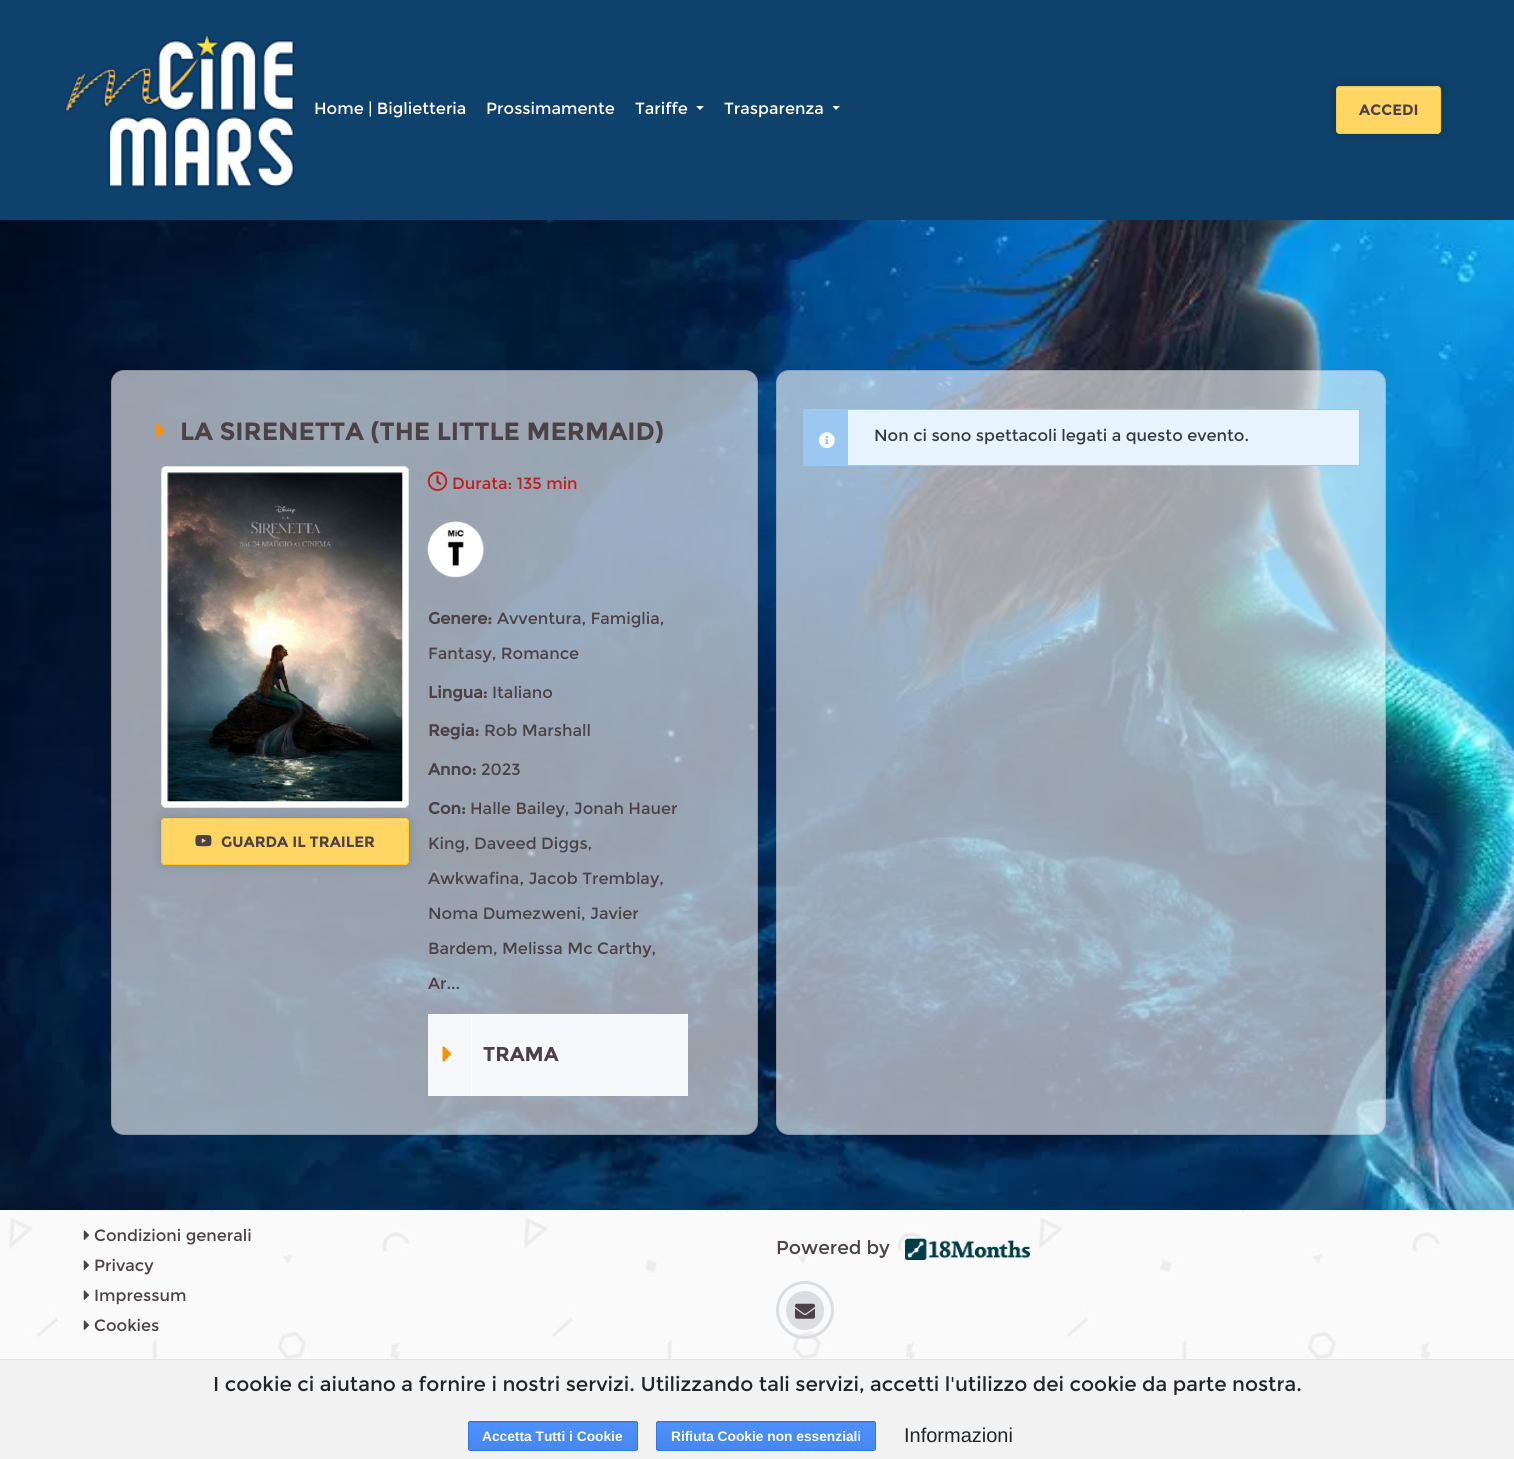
#include <cairo.h>
#include <math.h>
#include <stddef.h>

typedef struct { double x, y; const char *s; } line_t;

static void ink(cairo_t *ctx, unsigned color) {
    cairo_set_source_rgb(ctx, (color >> 16) / 255.0, (color >> 8 & 255) / 255.0, (color & 255) / 255.0);
}

static void round_path(cairo_t *ctx, double x, double y, double w, double h, double r) {
    cairo_new_sub_path(ctx);
    cairo_arc(ctx, x + w - r, y + h - r, r, 0, M_PI / 2);
    cairo_arc(ctx, x + r, y + h - r, r, M_PI / 2, M_PI);
    cairo_arc(ctx, x + r, y + r, r, M_PI, 1.5 * M_PI);
    cairo_arc(ctx, x + w - r, y + r, r, 1.5 * M_PI, 2 * M_PI);
    cairo_close_path(ctx);
}

static void blur_box(cairo_t *ctx, double x, double y, double w, double h, double r, double blur, double alpha) {
    cairo_push_group_with_content(ctx, CAIRO_CONTENT_ALPHA);
    cairo_set_operator(ctx, CAIRO_OPERATOR_SOURCE);
    for (int i = 15; i >= -15 && fmin(w, h) + blur * i / 3 > 0; i -= 2) {
        double e = blur * i / 6;
        cairo_set_source_rgba(ctx, 0, 0, 0, alpha * erfc((i - 1) / 8.5) / 2);
        round_path(ctx, x - e, y - e, w + 2 * e, h + 2 * e, fmax(0, fmin(r + e + blur * .6, fmin(w, h) / 2 + e)));
        cairo_fill(ctx);
    }
    cairo_pattern_t *soft = cairo_pop_group(ctx);
    cairo_mask(ctx, soft);
    cairo_pattern_destroy(soft);
}

static void paste(cairo_t *ctx, const char *path, double x, double y, double w, double h) {
    cairo_surface_t *image = cairo_image_surface_create_from_png(path);
    cairo_save(ctx);
    cairo_set_source_surface(ctx, image, x, y);
    cairo_rectangle(ctx, x, y, w, h);
    cairo_fill(ctx);
    cairo_restore(ctx);
    cairo_surface_destroy(image);
}

int main(void) {
    cairo_surface_t *surface = cairo_image_surface_create(CAIRO_FORMAT_RGB24, 1514, 1459);
    cairo_t *ctx = cairo_create(surface);
    cairo_font_options_t *options = cairo_font_options_create();
    cairo_font_options_set_hint_metrics(options, CAIRO_HINT_METRICS_OFF);
    cairo_font_options_set_hint_style(options, CAIRO_HINT_STYLE_NONE);
    cairo_set_font_options(ctx, options);
    cairo_set_miter_limit(ctx, 4);
    cairo_pattern_t *gradient;
    ink(ctx, 0xFFFFFF);
    cairo_paint(ctx);
    ink(ctx, 0x0E416B);
    cairo_rectangle(ctx, 0, 0, 1514, 220);
    cairo_fill(ctx);
    paste(ctx, "media/1.png", 65, 35, 230, 153);
    cairo_select_font_face(ctx, "Montserrat", CAIRO_FONT_SLANT_NORMAL, CAIRO_FONT_WEIGHT_NORMAL);
    cairo_set_font_size(ctx, 16.25);
    ink(ctx, 0xFFFFFF);
    {
        static const line_t items[] = {
            {314, 114, "Home | Biglietteria"},
            {486, 114, "Prossimamente"},
            {635, 114, "Tariffe"},
        };
        for (size_t i = 0; i < sizeof items / sizeof *items; i++) {
            cairo_move_to(ctx, items[i].x, items[i].y);
            cairo_show_text(ctx, items[i].s);
        }
    }
    cairo_new_path(ctx);
    cairo_move_to(ctx, 696, 106);
    cairo_line_to(ctx, 704, 106);
    cairo_line_to(ctx, 700, 110);
    cairo_close_path(ctx);
    cairo_fill(ctx);
    cairo_move_to(ctx, 724, 114);
    cairo_show_text(ctx, "Trasparenza");
    cairo_new_path(ctx);
    cairo_move_to(ctx, 832.5, 106);
    cairo_line_to(ctx, 840, 106);
    cairo_line_to(ctx, 836, 110);
    cairo_close_path(ctx);
    cairo_fill(ctx);
    ink(ctx, 0x000000);
    blur_box(ctx, 1336, 86, 105, 48, 4, 6, 0.16);
    ink(ctx, 0xFFD564);
    round_path(ctx, 1336, 86, 105, 48, 4);
    cairo_fill(ctx);
    ink(ctx, 0xFFDD83);
    cairo_new_path(ctx);
    cairo_move_to(ctx, 1340, 90);
    cairo_line_to(ctx, 1438, 90);
    cairo_curve_to(ctx, 1439, 90, 1440, 91, 1440, 92);
    cairo_line_to(ctx, 1440, 90);
    cairo_curve_to(ctx, 1440, 89, 1439, 88, 1438, 88);
    cairo_line_to(ctx, 1340, 88);
    cairo_curve_to(ctx, 1339, 88, 1338, 89, 1338, 90);
    cairo_line_to(ctx, 1338, 92);
    cairo_curve_to(ctx, 1338, 91, 1339, 90, 1340, 90);
    cairo_close_path(ctx);
    cairo_fill(ctx);
    round_path(ctx, 1336.5, 86.5, 104, 47, 3.5);
    ink(ctx, 0xFFC936);
    cairo_set_line_width(ctx, 1);
    cairo_stroke(ctx);
    cairo_select_font_face(ctx, "Montserrat", CAIRO_FONT_SLANT_NORMAL, CAIRO_FONT_WEIGHT_BOLD);
    cairo_set_font_size(ctx, 15);
    ink(ctx, 0x4C4145);
    cairo_move_to(ctx, 1359, 115);
    cairo_show_text(ctx, "ACCEDI");
    paste(ctx, "media/2.png", 0, 220, 1514, 990);
    cairo_set_source_rgba(ctx, 1, 1, 1, 0.6);
    round_path(ctx, 111, 370, 647, 765, 13);
    cairo_fill(ctx);
    round_path(ctx, 111.5, 370.5, 646, 764, 12.5);
    cairo_set_source_rgba(ctx, 0, 0, 0, 0.12);
    cairo_stroke(ctx);
    paste(ctx, "media/3.png", 156, 423, 9, 15);
    cairo_set_font_size(ctx, 25);
    ink(ctx, 0x4C4145);
    cairo_move_to(ctx, 180, 440);
    cairo_show_text(ctx, "LA SIRENETTA (THE LITTLE MERMAID)");
    ink(ctx, 0x000000);
    blur_box(ctx, 161, 818, 248, 47, 4, 6, 0.16);
    ink(ctx, 0xFFFFFF);
    round_path(ctx, 161.5, 466.5, 247, 341, 4.5);
    cairo_fill_preserve(ctx);
    ink(ctx, 0xDEE2E6);
    cairo_stroke(ctx);
    paste(ctx, "media/4.png", 167, 472, 236, 330);
    ink(ctx, 0xFFD564);
    round_path(ctx, 161, 818, 248, 47, 4);
    cairo_fill(ctx);
    ink(ctx, 0xFFDD83);
    cairo_new_path(ctx);
    cairo_move_to(ctx, 165, 821);
    cairo_line_to(ctx, 405, 821);
    cairo_curve_to(ctx, 406, 821, 408, 822, 408, 824);
    cairo_line_to(ctx, 408, 822);
    cairo_curve_to(ctx, 408, 820, 407, 819, 406, 819);
    cairo_line_to(ctx, 166, 819);
    cairo_curve_to(ctx, 164, 819, 163, 820, 163, 822);
    cairo_close_path(ctx);
    cairo_fill(ctx);
    round_path(ctx, 161.5, 818.5, 247, 46, 3.5);
    ink(ctx, 0xFFC936);
    cairo_stroke(ctx);
    paste(ctx, "media/5.png", 195, 835, 17, 12);
    cairo_set_font_size(ctx, 15);
    ink(ctx, 0x4C4145);
    cairo_move_to(ctx, 221, 847);
    cairo_show_text(ctx, "GUARDA IL TRAILER");
    paste(ctx, "media/6.png", 427, 471, 21, 20);
    cairo_select_font_face(ctx, "Montserrat", CAIRO_FONT_SLANT_NORMAL, CAIRO_FONT_WEIGHT_NORMAL);
    cairo_set_font_size(ctx, 16.25);
    ink(ctx, 0xC31C1D);
    cairo_move_to(ctx, 452, 489);
    cairo_show_text(ctx, "Durata: 135 min");
    paste(ctx, "media/7.png", 427, 521, 57, 57);
    cairo_select_font_face(ctx, "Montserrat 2", CAIRO_FONT_SLANT_NORMAL, CAIRO_FONT_WEIGHT_BOLD);
    ink(ctx, 0x4C4145);
    cairo_move_to(ctx, 428, 624);
    cairo_show_text(ctx, "Genere:");
    cairo_select_font_face(ctx, "Montserrat", CAIRO_FONT_SLANT_NORMAL, CAIRO_FONT_WEIGHT_NORMAL);
    cairo_move_to(ctx, 497, 624);
    cairo_show_text(ctx, "Avventura, Famiglia,");
    cairo_move_to(ctx, 428, 659);
    cairo_show_text(ctx, "Fantasy, Romance");
    cairo_select_font_face(ctx, "Montserrat 2", CAIRO_FONT_SLANT_NORMAL, CAIRO_FONT_WEIGHT_BOLD);
    cairo_move_to(ctx, 428, 698);
    cairo_show_text(ctx, "Lingua:");
    cairo_select_font_face(ctx, "Montserrat", CAIRO_FONT_SLANT_NORMAL, CAIRO_FONT_WEIGHT_NORMAL);
    cairo_move_to(ctx, 492, 698);
    cairo_show_text(ctx, "Italiano");
    cairo_select_font_face(ctx, "Montserrat 2", CAIRO_FONT_SLANT_NORMAL, CAIRO_FONT_WEIGHT_BOLD);
    cairo_move_to(ctx, 428, 736);
    cairo_show_text(ctx, "Regia:");
    cairo_select_font_face(ctx, "Montserrat", CAIRO_FONT_SLANT_NORMAL, CAIRO_FONT_WEIGHT_NORMAL);
    cairo_move_to(ctx, 484, 736);
    cairo_show_text(ctx, "Rob Marshall");
    cairo_select_font_face(ctx, "Montserrat 2", CAIRO_FONT_SLANT_NORMAL, CAIRO_FONT_WEIGHT_BOLD);
    cairo_move_to(ctx, 428, 775);
    cairo_show_text(ctx, "Anno:");
    cairo_select_font_face(ctx, "Montserrat", CAIRO_FONT_SLANT_NORMAL, CAIRO_FONT_WEIGHT_NORMAL);
    cairo_move_to(ctx, 481, 775);
    cairo_show_text(ctx, "2023");
    cairo_select_font_face(ctx, "Montserrat 2", CAIRO_FONT_SLANT_NORMAL, CAIRO_FONT_WEIGHT_BOLD);
    cairo_move_to(ctx, 428, 814);
    cairo_show_text(ctx, "Con:");
    cairo_select_font_face(ctx, "Montserrat", CAIRO_FONT_SLANT_NORMAL, CAIRO_FONT_WEIGHT_NORMAL);
    {
        static const line_t items[] = {
            {470, 814, "Halle Bailey, Jonah Hauer"},
            {428, 849, "King, Daveed Diggs,"},
            {428, 884, "Awkwafina, Jacob Tremblay,"},
            {428, 919, "Noma Dumezweni, Javier"},
            {428, 954, "Bardem, Melissa Mc Carthy,"},
            {428, 989, "Ar..."},
        };
        for (size_t i = 0; i < sizeof items / sizeof *items; i++) {
            cairo_move_to(ctx, items[i].x, items[i].y);
            cairo_show_text(ctx, items[i].s);
        }
    }
    ink(ctx, 0xFFFFFF);
    cairo_rectangle(ctx, 428, 1014, 260, 4);
    cairo_fill(ctx);
    ink(ctx, 0xF7F8F9);
    cairo_new_path(ctx);
    cairo_move_to(ctx, 432, 1014);
    cairo_line_to(ctx, 684, 1014);
    cairo_curve_to(ctx, 686, 1014, 688, 1016, 688, 1018);
    cairo_line_to(ctx, 688, 1096);
    cairo_line_to(ctx, 428, 1096);
    cairo_line_to(ctx, 428, 1018);
    cairo_curve_to(ctx, 428, 1016, 430, 1014, 432, 1014);
    cairo_close_path(ctx);
    cairo_fill(ctx);
    ink(ctx, 0xFFFFFF);
    cairo_rectangle(ctx, 471, 1015, 1, 80);
    cairo_fill(ctx);
    paste(ctx, "media/8.png", 442, 1046, 10, 16);
    cairo_select_font_face(ctx, "Montserrat", CAIRO_FONT_SLANT_NORMAL, CAIRO_FONT_WEIGHT_BOLD);
    cairo_set_font_size(ctx, 20);
    ink(ctx, 0x4C4145);
    cairo_move_to(ctx, 483, 1061);
    cairo_show_text(ctx, "TRAMA");
    cairo_set_source_rgba(ctx, 1, 1, 1, 0.6);
    round_path(ctx, 776, 370, 610, 765, 13);
    cairo_fill(ctx);
    round_path(ctx, 776.5, 370.5, 609, 764, 12.5);
    cairo_set_source_rgba(ctx, 0, 0, 0, 0.12);
    cairo_stroke(ctx);
    ink(ctx, 0xE7F4FF);
    cairo_rectangle(ctx, 848, 410, 511, 55);
    cairo_fill(ctx);
    cairo_rectangle(ctx, 803.5, 409.5, 556, 56);
    ink(ctx, 0x9AC8F1);
    cairo_stroke(ctx);
    cairo_rectangle(ctx, 804, 410, 44, 55);
    cairo_fill(ctx);
    paste(ctx, "media/9.png", 819, 432, 16, 16);
    cairo_select_font_face(ctx, "Montserrat", CAIRO_FONT_SLANT_NORMAL, CAIRO_FONT_WEIGHT_NORMAL);
    cairo_set_font_size(ctx, 16.25);
    ink(ctx, 0x343A40);
    cairo_move_to(ctx, 874, 441);
    cairo_show_text(ctx, "Non ci sono spettacoli legati a questo evento.");
    ink(ctx, 0xFAFAFA);
    cairo_rectangle(ctx, 0, 1210, 1514, 149);
    cairo_fill(ctx);
    paste(ctx, "media/10.png", 9, 1210, 1431, 149);
    paste(ctx, "media/11.png", 83, 1230, 7, 10);
    ink(ctx, 0x4C4145);
    cairo_move_to(ctx, 94, 1241);
    cairo_show_text(ctx, "Condizioni generali");
    paste(ctx, "media/11.png", 83, 1260, 7, 10);
    cairo_move_to(ctx, 94, 1271);
    cairo_show_text(ctx, "Privacy");
    paste(ctx, "media/11.png", 83, 1290, 7, 10);
    cairo_move_to(ctx, 94, 1301);
    cairo_show_text(ctx, "Impressum");
    paste(ctx, "media/11.png", 83, 1320, 7, 10);
    cairo_move_to(ctx, 94, 1331);
    cairo_show_text(ctx, "Cookies");
    cairo_set_font_size(ctx, 18.75);
    cairo_move_to(ctx, 776, 1254);
    cairo_show_text(ctx, "Powered by");
    paste(ctx, "media/12.png", 905, 1238, 125, 22);
    ink(ctx, 0xDBDEE1);
    round_path(ctx, 786, 1291, 38, 39, 19);
    cairo_fill(ctx);
    paste(ctx, "media/13.png", 795, 1303, 20, 16);
    cairo_arc(ctx, 805, 1310, 27.5, 0, 2 * M_PI);
    cairo_set_line_width(ctx, 3);
    cairo_stroke(ctx);
    ink(ctx, 0xF2F2F2);
    cairo_rectangle(ctx, 0, 1360, 1514, 99);
    cairo_fill(ctx);
    ink(ctx, 0xE4E4E4);
    cairo_rectangle(ctx, 0, 1359, 1514, 1);
    cairo_fill(ctx);
    cairo_set_font_size(ctx, 20);
    ink(ctx, 0x212529);
    cairo_move_to(ctx, 213, 1391);
    cairo_show_text(ctx, "I cookie ci aiutano a fornire i nostri servizi. Utilizzando tali servizi, accetti l'utilizzo dei cookie da parte nostra.");
    cairo_save(ctx);
    round_path(ctx, 468, 1421, 170, 30, 2.5);
    cairo_clip(ctx);
    gradient = cairo_pattern_create_linear(553, 1395, 553, 1423);
    cairo_pattern_add_color_stop_rgba(gradient, 0, 0.302, 0.565, 0.996, 1);
    cairo_pattern_add_color_stop_rgba(gradient, 1, 0.278, 0.529, 0.929, 1);
    cairo_set_source(ctx, gradient);
    cairo_pattern_destroy(gradient);
    cairo_rectangle(ctx, 468, 1421, 170, 2);
    cairo_fill(ctx);
    cairo_restore(ctx);
    gradient = cairo_pattern_create_linear(553, 1423, 553, 1450);
    cairo_pattern_add_color_stop_rgba(gradient, 0, 0.302, 0.565, 0.996, 1);
    cairo_pattern_add_color_stop_rgba(gradient, 1, 0.278, 0.529, 0.929, 1);
    cairo_set_source(ctx, gradient);
    cairo_pattern_destroy(gradient);
    cairo_rectangle(ctx, 468, 1423, 170, 27);
    cairo_fill(ctx);
    round_path(ctx, 468.5, 1421.5, 169, 29, 2);
    ink(ctx, 0x3079ED);
    cairo_set_line_width(ctx, 1);
    cairo_stroke(ctx);
    cairo_select_font_face(ctx, "Liberation Sans", CAIRO_FONT_SLANT_NORMAL, CAIRO_FONT_WEIGHT_BOLD);
    cairo_set_font_size(ctx, 13.75);
    ink(ctx, 0xFFFFFF);
    cairo_move_to(ctx, 482, 1441);
    cairo_show_text(ctx, "Accetta Tutti i Cookie");
    cairo_save(ctx);
    round_path(ctx, 656, 1421, 220, 30, 2.5);
    cairo_clip(ctx);
    gradient = cairo_pattern_create_linear(766, 1395, 766, 1423);
    cairo_pattern_add_color_stop_rgba(gradient, 0, 0.302, 0.565, 0.996, 1);
    cairo_pattern_add_color_stop_rgba(gradient, 1, 0.278, 0.529, 0.929, 1);
    cairo_set_source(ctx, gradient);
    cairo_pattern_destroy(gradient);
    cairo_rectangle(ctx, 656, 1421, 220, 2);
    cairo_fill(ctx);
    cairo_restore(ctx);
    gradient = cairo_pattern_create_linear(766, 1423, 766, 1450);
    cairo_pattern_add_color_stop_rgba(gradient, 0, 0.302, 0.565, 0.996, 1);
    cairo_pattern_add_color_stop_rgba(gradient, 1, 0.278, 0.529, 0.929, 1);
    cairo_set_source(ctx, gradient);
    cairo_pattern_destroy(gradient);
    cairo_rectangle(ctx, 656, 1423, 220, 27);
    cairo_fill(ctx);
    round_path(ctx, 656.5, 1421.5, 219, 29, 2);
    ink(ctx, 0x3079ED);
    cairo_stroke(ctx);
    ink(ctx, 0xFFFFFF);
    cairo_move_to(ctx, 671, 1441);
    cairo_show_text(ctx, "Rifiuta Cookie non essenziali");
    cairo_select_font_face(ctx, "Liberation Sans", CAIRO_FONT_SLANT_NORMAL, CAIRO_FONT_WEIGHT_NORMAL);
    cairo_set_font_size(ctx, 20);
    ink(ctx, 0x212529);
    cairo_move_to(ctx, 904, 1442);
    cairo_show_text(ctx, "Informazioni");
    cairo_surface_write_to_png(surface, "image.png");
    cairo_font_options_destroy(options);
    cairo_destroy(ctx);
    cairo_surface_destroy(surface);
    return 0;
}
